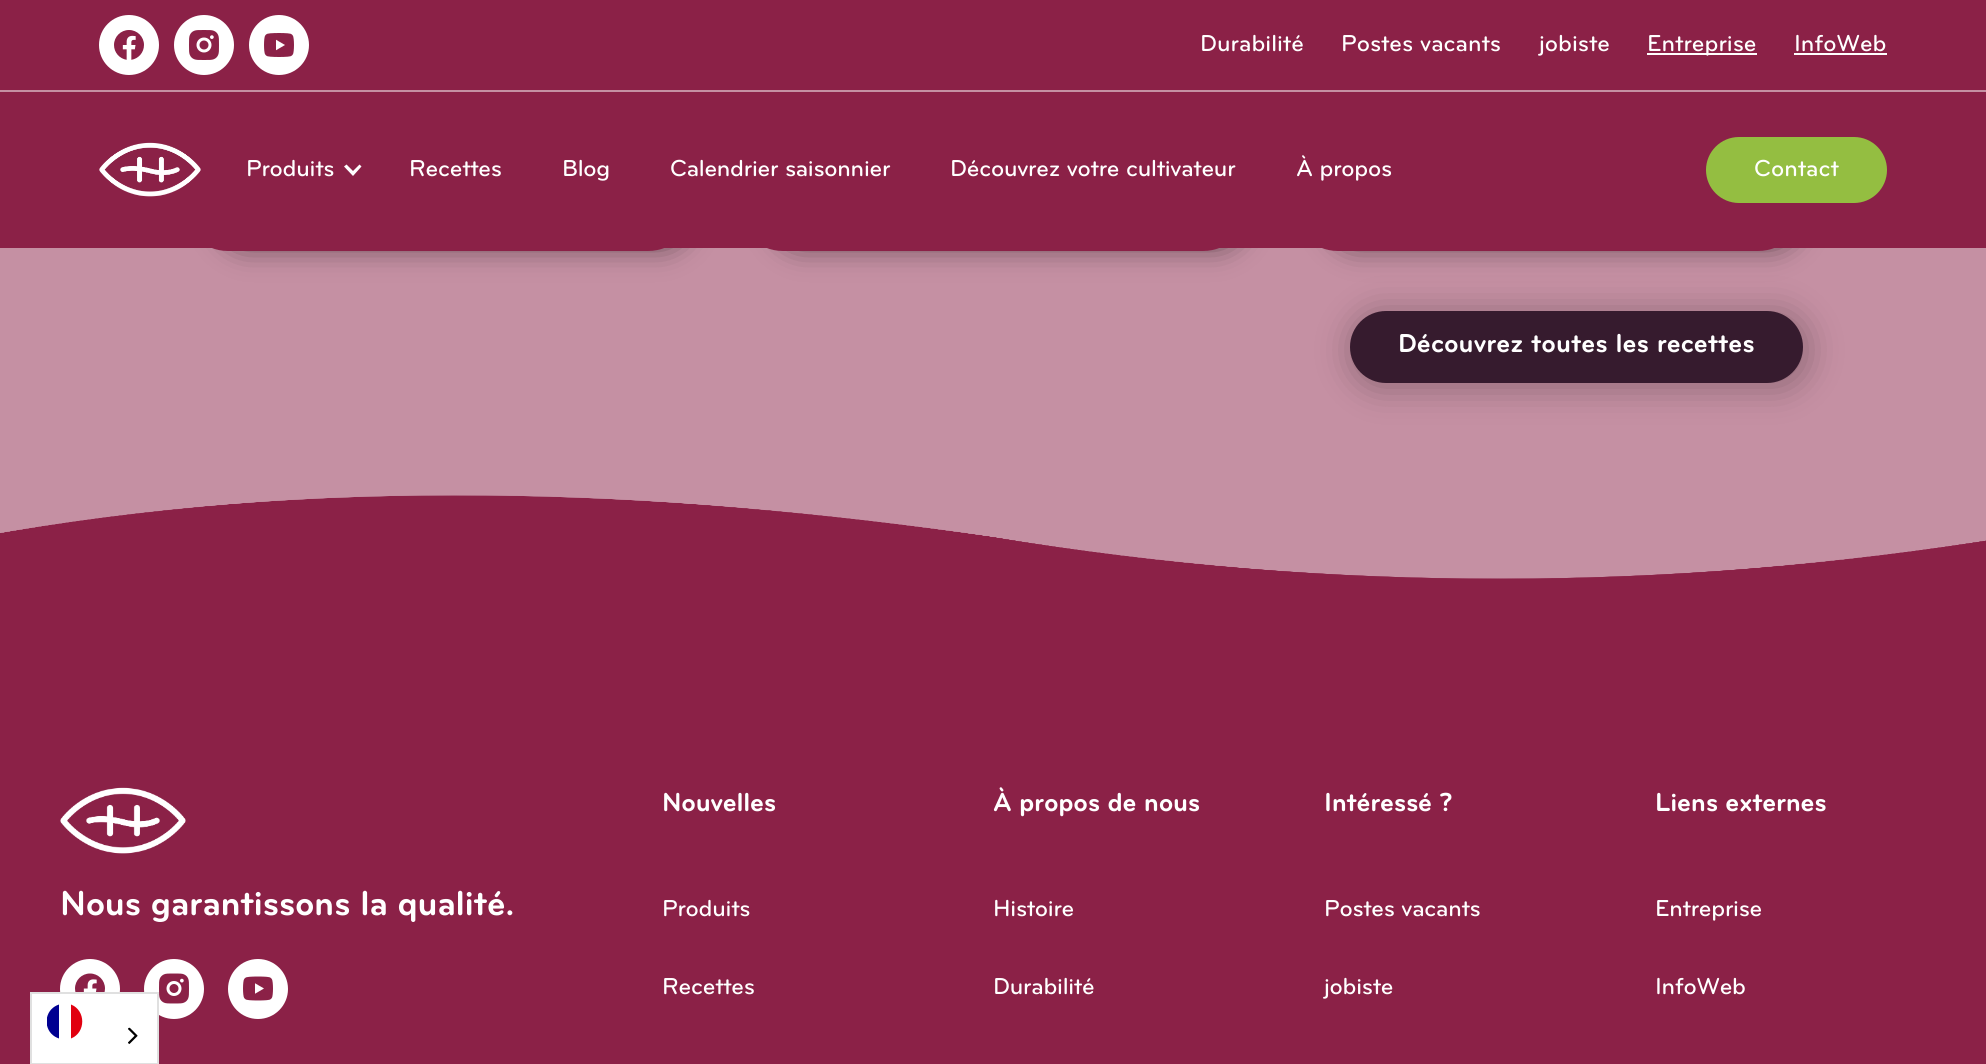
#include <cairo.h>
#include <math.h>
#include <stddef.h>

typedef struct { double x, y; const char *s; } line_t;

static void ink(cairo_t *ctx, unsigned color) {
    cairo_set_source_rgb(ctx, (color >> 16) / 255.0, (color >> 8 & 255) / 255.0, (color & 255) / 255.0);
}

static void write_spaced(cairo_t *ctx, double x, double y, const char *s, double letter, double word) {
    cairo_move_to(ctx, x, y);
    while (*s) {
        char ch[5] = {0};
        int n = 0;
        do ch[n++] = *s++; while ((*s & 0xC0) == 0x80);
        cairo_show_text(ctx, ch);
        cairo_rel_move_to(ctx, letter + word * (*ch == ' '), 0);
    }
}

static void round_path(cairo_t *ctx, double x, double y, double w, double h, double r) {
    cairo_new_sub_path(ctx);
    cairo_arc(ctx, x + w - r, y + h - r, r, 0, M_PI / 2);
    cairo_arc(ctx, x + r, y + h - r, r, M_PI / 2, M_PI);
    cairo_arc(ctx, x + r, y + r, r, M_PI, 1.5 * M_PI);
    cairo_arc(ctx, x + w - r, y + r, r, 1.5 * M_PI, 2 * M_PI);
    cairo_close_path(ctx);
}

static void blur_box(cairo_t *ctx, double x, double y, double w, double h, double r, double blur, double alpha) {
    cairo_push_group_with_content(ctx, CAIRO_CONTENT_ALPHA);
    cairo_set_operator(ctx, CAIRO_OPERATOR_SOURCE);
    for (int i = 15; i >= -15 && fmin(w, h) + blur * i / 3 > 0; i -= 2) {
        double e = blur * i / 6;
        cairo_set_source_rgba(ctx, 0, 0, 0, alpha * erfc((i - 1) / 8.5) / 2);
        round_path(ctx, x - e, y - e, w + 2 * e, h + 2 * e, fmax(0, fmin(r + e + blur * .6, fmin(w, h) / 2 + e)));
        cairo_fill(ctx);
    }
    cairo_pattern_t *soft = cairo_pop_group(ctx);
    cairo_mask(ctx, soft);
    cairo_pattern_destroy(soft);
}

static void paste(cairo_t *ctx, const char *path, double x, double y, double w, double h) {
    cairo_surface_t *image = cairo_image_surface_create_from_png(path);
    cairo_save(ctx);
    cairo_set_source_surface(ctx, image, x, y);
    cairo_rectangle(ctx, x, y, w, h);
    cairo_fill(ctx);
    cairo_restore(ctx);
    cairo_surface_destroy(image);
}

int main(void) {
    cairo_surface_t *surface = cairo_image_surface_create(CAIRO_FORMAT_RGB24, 1986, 1064);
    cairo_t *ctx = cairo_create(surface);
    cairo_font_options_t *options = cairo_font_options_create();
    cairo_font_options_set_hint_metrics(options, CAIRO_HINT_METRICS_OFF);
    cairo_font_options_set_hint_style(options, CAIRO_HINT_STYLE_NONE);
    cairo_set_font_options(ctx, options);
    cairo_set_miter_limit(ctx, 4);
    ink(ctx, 0xC590A3);
    cairo_paint(ctx);
    ink(ctx, 0x000000);
    blur_box(ctx, 222, -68, 465, 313, 23, 15, 0.6);
    ink(ctx, 0x8B2147);
    cairo_new_path(ctx);
    cairo_move_to(ctx, 183, -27);
    cairo_line_to(ctx, 693, -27);
    cairo_line_to(ctx, 693, 206);
    cairo_curve_to(ctx, 693, 231, 673, 251, 648, 251);
    cairo_line_to(ctx, 228, 251);
    cairo_curve_to(ctx, 203, 251, 183, 231, 183, 206);
    cairo_close_path(ctx);
    cairo_fill(ctx);
    ink(ctx, 0x000000);
    blur_box(ctx, 777, -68, 465, 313, 23, 15, 0.6);
    ink(ctx, 0x8B2147);
    cairo_new_path(ctx);
    cairo_move_to(ctx, 738, -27);
    cairo_line_to(ctx, 1248, -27);
    cairo_line_to(ctx, 1248, 206);
    cairo_curve_to(ctx, 1248, 231, 1228, 251, 1203, 251);
    cairo_line_to(ctx, 783, 251);
    cairo_curve_to(ctx, 758, 251, 738, 231, 738, 206);
    cairo_close_path(ctx);
    cairo_fill(ctx);
    ink(ctx, 0x000000);
    blur_box(ctx, 1332, -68, 465, 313, 23, 15, 0.6);
    ink(ctx, 0x8B2147);
    cairo_new_path(ctx);
    cairo_move_to(ctx, 1293, -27);
    cairo_line_to(ctx, 1803, -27);
    cairo_line_to(ctx, 1803, 206);
    cairo_curve_to(ctx, 1803, 231, 1783, 251, 1758, 251);
    cairo_line_to(ctx, 1338, 251);
    cairo_curve_to(ctx, 1313, 251, 1293, 231, 1293, 206);
    cairo_close_path(ctx);
    cairo_fill(ctx);
    cairo_rectangle(ctx, 0, 0, 1986, 248);
    cairo_fill(ctx);
    ink(ctx, 0xC590A3);
    cairo_rectangle(ctx, 0, 90, 1986, 2);
    cairo_fill(ctx);
    ink(ctx, 0xFFFFFF);
    cairo_arc(ctx, 129, 45, 30, 0, 2 * M_PI);
    cairo_fill(ctx);
    paste(ctx, "media/1.png", 114, 30, 30, 30);
    cairo_arc(ctx, 204, 45, 30, 0, 2 * M_PI);
    cairo_fill(ctx);
    paste(ctx, "media/2.png", 189, 30, 30, 30);
    cairo_arc(ctx, 279, 45, 30, 0, 2 * M_PI);
    cairo_fill(ctx);
    paste(ctx, "media/3.png", 264, 33, 30, 24);
    cairo_select_font_face(ctx, "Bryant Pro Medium", CAIRO_FONT_SLANT_NORMAL, CAIRO_FONT_WEIGHT_NORMAL);
    cairo_set_font_size(ctx, 24);
    {
        static const line_t items[] = {
            {1200, 51, "Durabilité"},
            {1341, 51, "Postes vacants"},
            {1539, 51, "jobiste"},
        };
        for (size_t i = 0; i < sizeof items / sizeof *items; i++) {
            cairo_move_to(ctx, items[i].x, items[i].y);
            cairo_show_text(ctx, items[i].s);
        }
    }
    cairo_rectangle(ctx, 1647, 53, 110, 2);
    cairo_fill(ctx);
    cairo_move_to(ctx, 1647, 51);
    cairo_show_text(ctx, "Entreprise");
    cairo_move_to(ctx, 1794, 51);
    cairo_show_text(ctx, "InfoWeb");
    cairo_rectangle(ctx, 1794, 53, 93, 2);
    cairo_fill(ctx);
    paste(ctx, "media/4.png", 99, 142, 102, 55);
    write_spaced(ctx, 246, 176, "Produits", -0.25, 0);
    cairo_new_path(ctx);
    cairo_move_to(ctx, 359.5, 164.5);
    cairo_line_to(ctx, 353, 171);
    cairo_line_to(ctx, 346.5, 164.5);
    cairo_line_to(ctx, 344, 166.5);
    cairo_line_to(ctx, 353, 176);
    cairo_line_to(ctx, 361.5, 166.5);
    cairo_close_path(ctx);
    cairo_fill(ctx);
    {
        static const line_t items[] = {
            {409, 176, "Recettes"},
            {562, 176, "Blog"},
            {670, 176, "Calendrier saisonnier"},
            {950, 176, "Découvrez votre cultivateur"},
            {1296, 176, "À propos"},
        };
        for (size_t i = 0; i < sizeof items / sizeof *items; i++) {
            write_spaced(ctx, items[i].x, items[i].y, items[i].s, -0.25, 0);
        }
    }
    ink(ctx, 0x94BE41);
    round_path(ctx, 1706, 137, 181, 66, 33);
    cairo_fill(ctx);
    ink(ctx, 0xFFFFFF);
    cairo_move_to(ctx, 1754, 176);
    cairo_show_text(ctx, "Contact");
    ink(ctx, 0x000000);
    blur_box(ctx, 1353, 314, 453, 72, 36, 18, 0.3);
    ink(ctx, 0x361B2E);
    round_path(ctx, 1350, 311, 453, 72, 36);
    cairo_fill(ctx);
    cairo_select_font_face(ctx, "Bryant Pro", CAIRO_FONT_SLANT_NORMAL, CAIRO_FONT_WEIGHT_BOLD);
    cairo_set_font_size(ctx, 27);
    ink(ctx, 0xFFFFFF);
    cairo_move_to(ctx, 1398, 352);
    cairo_show_text(ctx, "Découvrez toutes les recettes");
    ink(ctx, 0x8B2147);
    cairo_rectangle(ctx, 0, 495, 1986, 569);
    cairo_fill(ctx);
    paste(ctx, "media/5.png", 0, 458, 1986, 121);
    paste(ctx, "media/6.png", 60, 787, 126, 67);
    cairo_set_font_size(ctx, 36);
    ink(ctx, 0xFFFFFF);
    write_spaced(ctx, 60, 915, "Nous garantissons la qualité.", -0.35, 0);
    cairo_new_path(ctx);
    cairo_arc(ctx, 90, 989, 30, 0, 2 * M_PI);
    cairo_fill(ctx);
    paste(ctx, "media/7.png", 75, 973, 30, 19);
    cairo_arc(ctx, 174, 989, 30, 0, 2 * M_PI);
    cairo_fill(ctx);
    paste(ctx, "media/8.png", 159, 973, 30, 31);
    cairo_arc(ctx, 258, 989, 30, 0, 2 * M_PI);
    cairo_fill(ctx);
    paste(ctx, "media/9.png", 243, 976, 30, 25);
    cairo_set_font_size(ctx, 27);
    write_spaced(ctx, 662, 811, "Nouvelles", -0.25, 0);
    cairo_select_font_face(ctx, "Bryant Pro Medium", CAIRO_FONT_SLANT_NORMAL, CAIRO_FONT_WEIGHT_NORMAL);
    cairo_set_font_size(ctx, 24);
    write_spaced(ctx, 662, 916, "Produits", -0.25, 0);
    write_spaced(ctx, 662, 994, "Recettes", -0.25, 0);
    cairo_select_font_face(ctx, "Bryant Pro", CAIRO_FONT_SLANT_NORMAL, CAIRO_FONT_WEIGHT_BOLD);
    cairo_set_font_size(ctx, 27);
    write_spaced(ctx, 993, 811, "À propos de nous", -0.25, 0);
    cairo_select_font_face(ctx, "Bryant Pro Medium", CAIRO_FONT_SLANT_NORMAL, CAIRO_FONT_WEIGHT_NORMAL);
    cairo_set_font_size(ctx, 24);
    write_spaced(ctx, 993, 916, "Histoire", -0.25, 0);
    write_spaced(ctx, 993, 994, "Durabilité", -0.25, 0);
    cairo_select_font_face(ctx, "Bryant Pro", CAIRO_FONT_SLANT_NORMAL, CAIRO_FONT_WEIGHT_BOLD);
    cairo_set_font_size(ctx, 27);
    write_spaced(ctx, 1324, 811, "Intéressé ?", -0.25, 0);
    cairo_select_font_face(ctx, "Bryant Pro Medium", CAIRO_FONT_SLANT_NORMAL, CAIRO_FONT_WEIGHT_NORMAL);
    cairo_set_font_size(ctx, 24);
    write_spaced(ctx, 1324, 916, "Postes vacants", -0.25, 0);
    write_spaced(ctx, 1324, 994, "jobiste", -0.25, 0);
    cairo_select_font_face(ctx, "Bryant Pro", CAIRO_FONT_SLANT_NORMAL, CAIRO_FONT_WEIGHT_BOLD);
    cairo_set_font_size(ctx, 27);
    write_spaced(ctx, 1655, 811, "Liens externes", -0.25, 0);
    cairo_select_font_face(ctx, "Bryant Pro Medium", CAIRO_FONT_SLANT_NORMAL, CAIRO_FONT_WEIGHT_NORMAL);
    cairo_set_font_size(ctx, 24);
    write_spaced(ctx, 1655, 916, "Entreprise", -0.25, 0);
    write_spaced(ctx, 1655, 994, "InfoWeb", -0.25, 0);
    cairo_rectangle(ctx, 31, 993, 127, 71);
    cairo_fill_preserve(ctx);
    ink(ctx, 0xE0E0E0);
    cairo_stroke(ctx);
    ink(ctx, 0x000091);
    cairo_new_path(ctx);
    cairo_move_to(ctx, 59, 1004.5);
    cairo_line_to(ctx, 59, 1038.5);
    cairo_curve_to(ctx, 53, 1036.5, 48.5, 1032, 47, 1025.5);
    cairo_line_to(ctx, 47, 1017.5);
    cairo_curve_to(ctx, 48.5, 1011, 53, 1006.5, 59, 1004.5);
    cairo_close_path(ctx);
    cairo_fill(ctx);
    ink(ctx, 0xE1000F);
    cairo_new_path(ctx);
    cairo_move_to(ctx, 71, 1004.5);
    cairo_curve_to(ctx, 86, 1010.5, 86, 1032.5, 71, 1038.5);
    cairo_close_path(ctx);
    cairo_fill(ctx);
    paste(ctx, "media/10.png", 128, 1027, 10, 17);
    cairo_surface_write_to_png(surface, "image.png");
    cairo_font_options_destroy(options);
    cairo_destroy(ctx);
    cairo_surface_destroy(surface);
    return 0;
}
